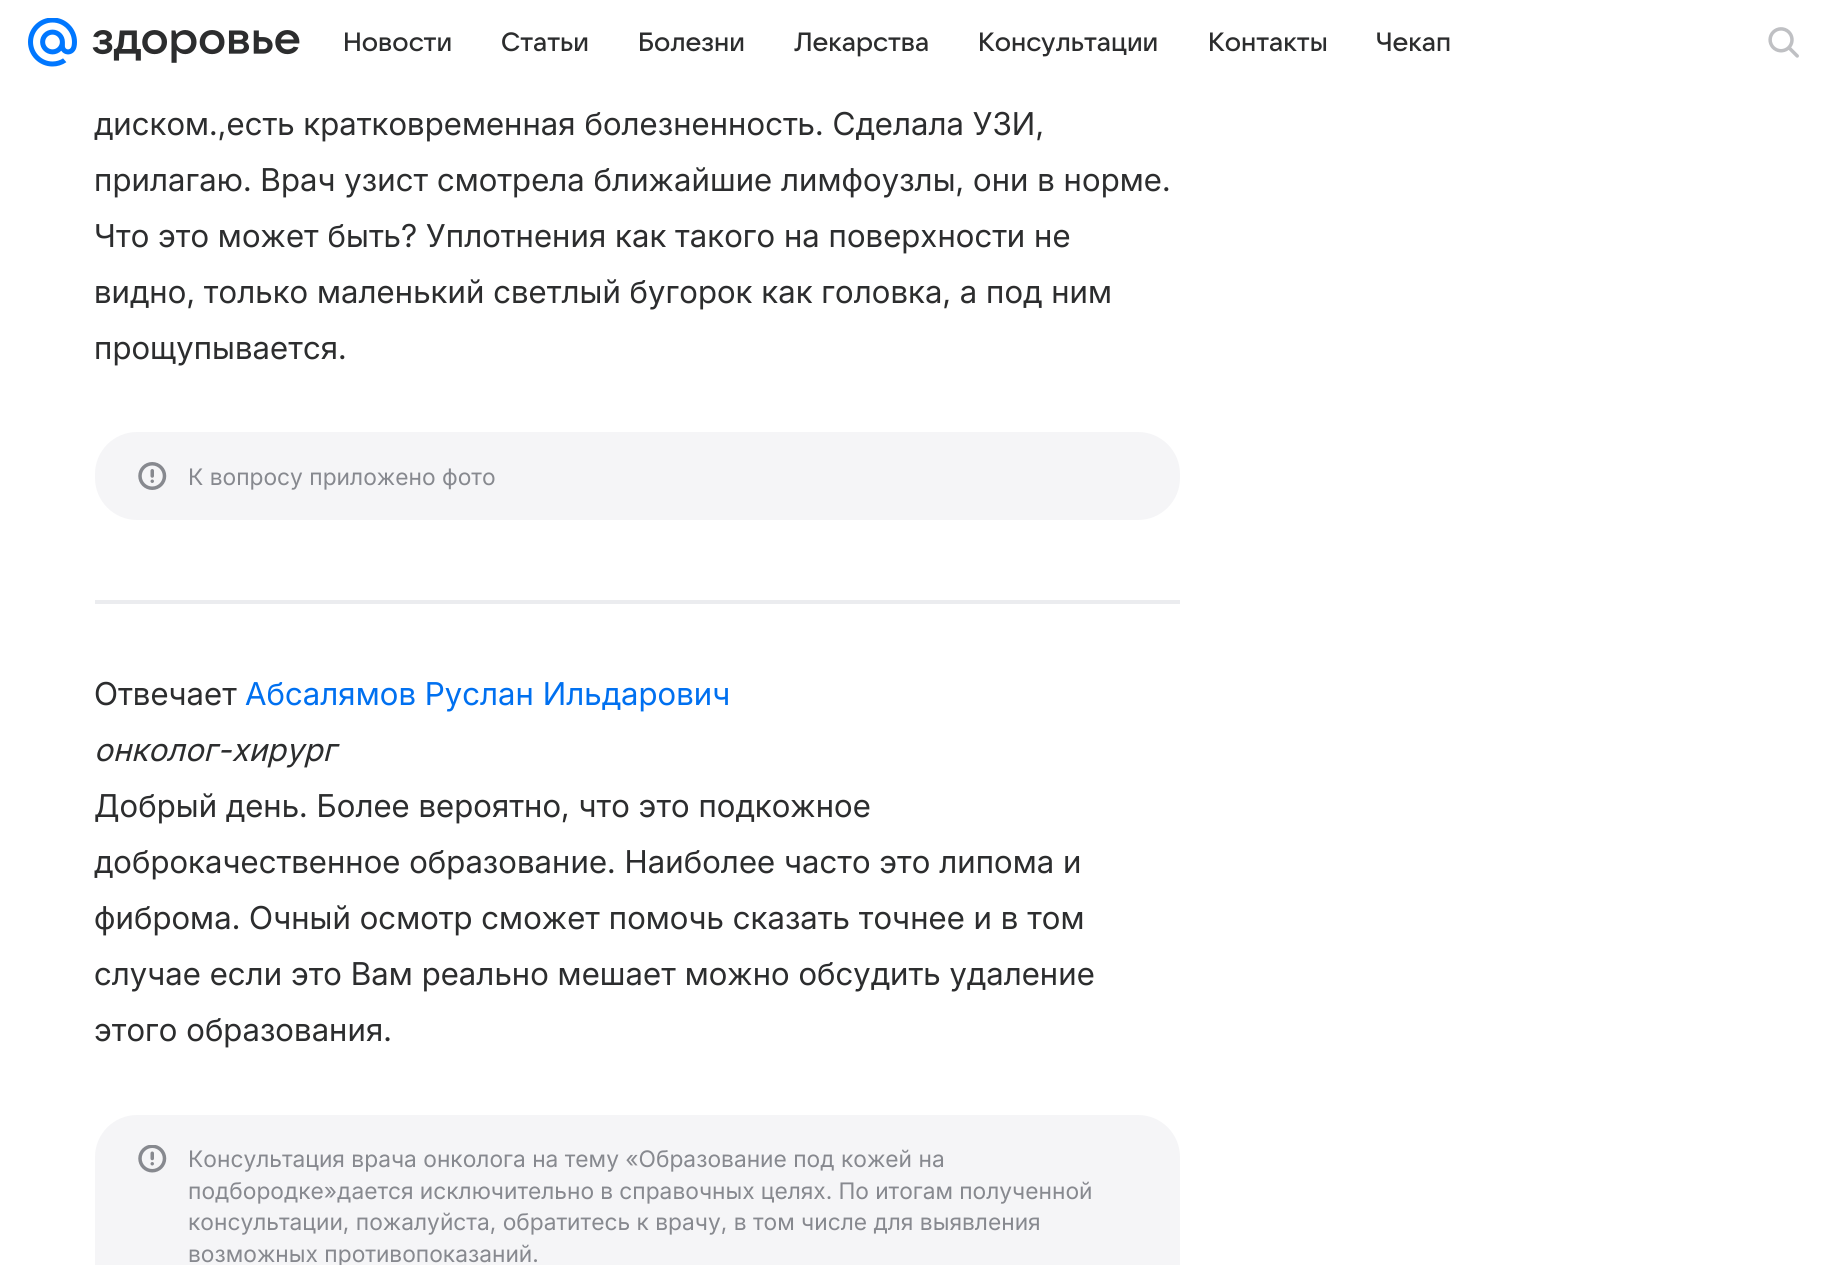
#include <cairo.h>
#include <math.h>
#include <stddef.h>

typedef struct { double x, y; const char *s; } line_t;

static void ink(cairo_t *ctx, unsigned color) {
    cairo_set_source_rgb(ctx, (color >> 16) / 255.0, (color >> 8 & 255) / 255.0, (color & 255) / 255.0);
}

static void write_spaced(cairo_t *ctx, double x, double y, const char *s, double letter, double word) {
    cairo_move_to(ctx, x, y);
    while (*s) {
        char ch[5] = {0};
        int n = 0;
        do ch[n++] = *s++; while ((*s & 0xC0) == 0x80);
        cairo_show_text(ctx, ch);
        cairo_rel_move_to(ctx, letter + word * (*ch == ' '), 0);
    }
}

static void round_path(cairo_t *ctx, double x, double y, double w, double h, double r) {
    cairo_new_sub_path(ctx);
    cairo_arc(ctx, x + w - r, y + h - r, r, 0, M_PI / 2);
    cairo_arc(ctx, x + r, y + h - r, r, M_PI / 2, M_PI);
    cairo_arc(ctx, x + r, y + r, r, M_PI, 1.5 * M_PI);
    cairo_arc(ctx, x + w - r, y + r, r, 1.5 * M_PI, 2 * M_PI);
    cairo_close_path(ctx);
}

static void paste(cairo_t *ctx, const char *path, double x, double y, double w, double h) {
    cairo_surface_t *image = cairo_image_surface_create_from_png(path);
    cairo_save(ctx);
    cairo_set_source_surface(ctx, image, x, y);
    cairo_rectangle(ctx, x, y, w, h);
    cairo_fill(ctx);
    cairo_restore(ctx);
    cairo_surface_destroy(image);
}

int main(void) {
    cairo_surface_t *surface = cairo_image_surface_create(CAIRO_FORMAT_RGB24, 1832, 1265);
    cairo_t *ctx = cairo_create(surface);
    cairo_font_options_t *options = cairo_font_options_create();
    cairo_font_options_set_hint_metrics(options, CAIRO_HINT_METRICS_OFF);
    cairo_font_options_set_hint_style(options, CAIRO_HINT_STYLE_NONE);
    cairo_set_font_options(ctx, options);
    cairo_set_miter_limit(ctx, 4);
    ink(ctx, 0xFFFFFF);
    cairo_paint(ctx);
    paste(ctx, "media/1.png", 28, 18, 49, 49);
    paste(ctx, "media/2.png", 92, 30, 208, 33);
    cairo_select_font_face(ctx, "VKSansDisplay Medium", CAIRO_FONT_SLANT_NORMAL, CAIRO_FONT_WEIGHT_NORMAL);
    cairo_set_font_size(ctx, 26.25);
    ink(ctx, 0x2C2D2E);
    {
        static const line_t items[] = {
            {343, 51, "Новости"},
            {501, 51, "Статьи"},
            {638, 51, "Болезни"},
            {794, 51, "Лекарства"},
            {978, 51, "Консультации"},
            {1208, 51, "Контакты"},
            {1376, 51, "Чекап"},
        };
        for (size_t i = 0; i < sizeof items / sizeof *items; i++) {
            cairo_move_to(ctx, items[i].x, items[i].y);
            cairo_show_text(ctx, items[i].s);
        }
    }
    paste(ctx, "media/3.png", 1768, 27, 31, 31);
    cairo_select_font_face(ctx, "Inter", CAIRO_FONT_SLANT_NORMAL, CAIRO_FONT_WEIGHT_NORMAL);
    cairo_set_font_size(ctx, 31.5);
    {
        static const line_t items[] = {
            {94, 135, "диском.,есть кратковременная болезненность. Сделала УЗИ,"},
            {94, 191, "прилагаю. Врач узист смотрела ближайшие лимфоузлы, они в норме."},
            {94, 247, "Что это может быть? Уплотнения как такого на поверхности не"},
            {94, 303, "видно, только маленький светлый бугорок как головка, а под ним"},
            {94, 359, "прощупывается."},
        };
        for (size_t i = 0; i < sizeof items / sizeof *items; i++) {
            write_spaced(ctx, items[i].x, items[i].y, items[i].s, 0.1, 0);
        }
    }
    ink(ctx, 0xF5F5F7);
    round_path(ctx, 95, 432, 1085, 88, 42);
    cairo_fill(ctx);
    paste(ctx, "media/4.png", 138, 462, 29, 28);
    cairo_select_font_face(ctx, "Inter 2", CAIRO_FONT_SLANT_NORMAL, CAIRO_FONT_WEIGHT_NORMAL);
    cairo_set_font_size(ctx, 22.75);
    ink(ctx, 0x87898F);
    cairo_move_to(ctx, 188, 485);
    cairo_show_text(ctx, "К вопросу приложено фото");
    ink(ctx, 0xEBECEF);
    cairo_rectangle(ctx, 95, 600, 1085, 4);
    cairo_fill(ctx);
    cairo_select_font_face(ctx, "Inter", CAIRO_FONT_SLANT_NORMAL, CAIRO_FONT_WEIGHT_NORMAL);
    cairo_set_font_size(ctx, 31.5);
    ink(ctx, 0x2C2D2E);
    write_spaced(ctx, 94, 705, "Отвечает", 0.1, 0);
    ink(ctx, 0x0070F0);
    write_spaced(ctx, 245, 705, "Абсалямов Руслан Ильдарович", 0.1, 0);
    cairo_select_font_face(ctx, "Inter", CAIRO_FONT_SLANT_ITALIC, CAIRO_FONT_WEIGHT_NORMAL);
    ink(ctx, 0x2C2D2E);
    write_spaced(ctx, 94, 761, "онколог-хирург", 0.1, 0);
    cairo_select_font_face(ctx, "Inter", CAIRO_FONT_SLANT_NORMAL, CAIRO_FONT_WEIGHT_NORMAL);
    {
        static const line_t items[] = {
            {94, 817, "Добрый день. Более вероятно, что это подкожное"},
            {94, 873, "доброкачественное образование. Наиболее часто это липома и"},
            {94, 929, "фиброма. Очный осмотр сможет помочь сказать точнее и в том"},
            {94, 985, "случае если это Вам реально мешает можно обсудить удаление"},
            {94, 1041, "этого образования."},
        };
        for (size_t i = 0; i < sizeof items / sizeof *items; i++) {
            write_spaced(ctx, items[i].x, items[i].y, items[i].s, 0.1, 0);
        }
    }
    ink(ctx, 0xF5F5F7);
    round_path(ctx, 95, 1115, 1085, 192, 42);
    cairo_fill(ctx);
    paste(ctx, "media/5.png", 138, 1145, 29, 28);
    cairo_select_font_face(ctx, "Inter 2", CAIRO_FONT_SLANT_NORMAL, CAIRO_FONT_WEIGHT_NORMAL);
    cairo_set_font_size(ctx, 22.75);
    ink(ctx, 0x87898F);
    cairo_move_to(ctx, 188, 1167);
    cairo_show_text(ctx, "Консультация врача онколога на тему «Образование под кожей на");
    write_spaced(ctx, 188, 1199, "подбородке»дается исключительно в справочных целях. По итогам полученной", 0, -0.25);
    cairo_move_to(ctx, 188, 1230);
    cairo_show_text(ctx, "консультации, пожалуйста, обратитесь к врачу, в том числе для выявления");
    cairo_move_to(ctx, 188, 1262);
    cairo_show_text(ctx, "возможных противопоказаний.");
    cairo_surface_write_to_png(surface, "image.png");
    cairo_font_options_destroy(options);
    cairo_destroy(ctx);
    cairo_surface_destroy(surface);
    return 0;
}
